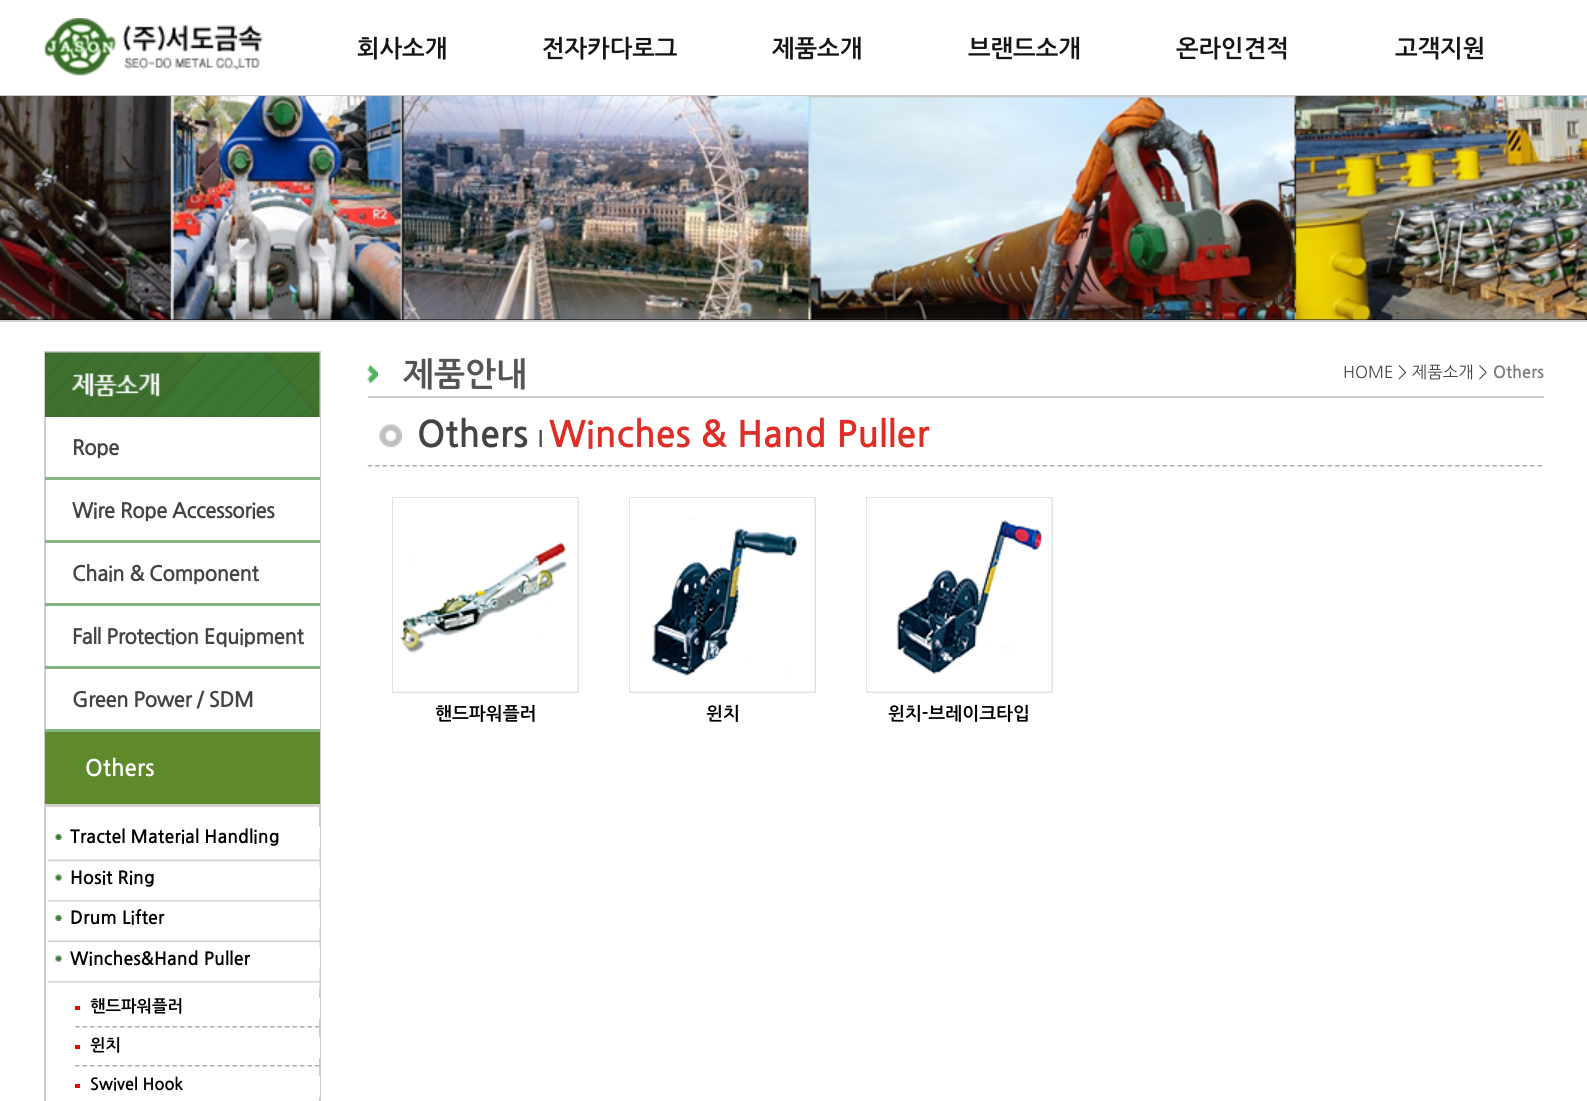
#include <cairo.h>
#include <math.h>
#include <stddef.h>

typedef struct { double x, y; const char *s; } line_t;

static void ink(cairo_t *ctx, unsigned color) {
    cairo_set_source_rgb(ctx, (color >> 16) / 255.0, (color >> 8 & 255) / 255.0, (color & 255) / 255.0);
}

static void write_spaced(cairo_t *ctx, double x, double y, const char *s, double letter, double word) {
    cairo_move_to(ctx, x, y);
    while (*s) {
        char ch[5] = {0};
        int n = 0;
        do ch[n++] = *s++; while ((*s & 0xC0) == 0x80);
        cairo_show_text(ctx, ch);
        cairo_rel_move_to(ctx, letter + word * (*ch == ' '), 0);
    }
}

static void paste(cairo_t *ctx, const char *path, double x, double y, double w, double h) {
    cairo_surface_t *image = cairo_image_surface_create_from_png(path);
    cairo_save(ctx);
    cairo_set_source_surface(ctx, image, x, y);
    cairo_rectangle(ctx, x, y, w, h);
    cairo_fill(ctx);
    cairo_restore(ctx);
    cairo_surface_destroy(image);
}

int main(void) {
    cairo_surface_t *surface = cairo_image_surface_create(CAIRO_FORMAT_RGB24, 1587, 1101);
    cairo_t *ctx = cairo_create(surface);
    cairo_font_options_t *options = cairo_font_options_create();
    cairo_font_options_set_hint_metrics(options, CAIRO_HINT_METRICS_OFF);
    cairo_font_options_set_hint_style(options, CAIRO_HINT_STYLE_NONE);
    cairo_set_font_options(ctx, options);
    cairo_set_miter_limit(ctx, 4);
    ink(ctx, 0xFFFFFF);
    cairo_paint(ctx);
    paste(ctx, "media/1.png", 44, 18, 219, 58);
    cairo_select_font_face(ctx, "NanumGothic", CAIRO_FONT_SLANT_NORMAL, CAIRO_FONT_WEIGHT_BOLD);
    cairo_set_font_size(ctx, 24);
    ink(ctx, 0x151515);
    {
        static const line_t items[] = {
            {357, 57, "회사소개"},
            {542, 57, "전자카다로그"},
            {772, 57, "제품소개"},
            {968, 57, "브랜드소개"},
            {1176, 57, "온라인견적"},
            {1395, 57, "고객지원"},
        };
        for (size_t i = 0; i < sizeof items / sizeof *items; i++) {
            cairo_move_to(ctx, items[i].x, items[i].y);
            cairo_show_text(ctx, items[i].s);
        }
    }
    ink(ctx, 0xCBCACA);
    cairo_rectangle(ctx, 0, 95, 1587, 1);
    cairo_fill(ctx);
    ink(ctx, 0x000000);
    cairo_rectangle(ctx, 0, 319, 1587, 1);
    cairo_fill(ctx);
    paste(ctx, "media/2.png", 0, 96, 1587, 224);
    ink(ctx, 0xCFCFCF);
    cairo_rectangle(ctx, 0, 320, 1587, 2);
    cairo_fill(ctx);
    cairo_rectangle(ctx, 45, 352, 275, 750);
    ink(ctx, 0xCCCCCC);
    cairo_stroke(ctx);
    paste(ctx, "media/3.png", 45, 352, 275, 65);
    ink(ctx, 0xFFFFFF);
    cairo_rectangle(ctx, 319, 417, 1, 60);
    cairo_fill(ctx);
    cairo_set_font_size(ctx, 21);
    ink(ctx, 0x444444);
    write_spaced(ctx, 72, 455, "Rope", -0.75, 0);
    ink(ctx, 0x85B580);
    cairo_rectangle(ctx, 45, 477, 275, 3);
    cairo_fill(ctx);
    ink(ctx, 0xFFFFFF);
    cairo_rectangle(ctx, 319, 480, 1, 60);
    cairo_fill(ctx);
    ink(ctx, 0x444444);
    write_spaced(ctx, 72, 518, "Wire Rope Accessories", -0.75, 0);
    ink(ctx, 0x85B580);
    cairo_rectangle(ctx, 45, 540, 275, 3);
    cairo_fill(ctx);
    ink(ctx, 0xFFFFFF);
    cairo_rectangle(ctx, 319, 543, 1, 60);
    cairo_fill(ctx);
    ink(ctx, 0x444444);
    write_spaced(ctx, 72, 581, "Chain & Component", -0.75, 0);
    ink(ctx, 0x85B580);
    cairo_rectangle(ctx, 45, 603, 275, 3);
    cairo_fill(ctx);
    ink(ctx, 0xFFFFFF);
    cairo_rectangle(ctx, 319, 606, 1, 60);
    cairo_fill(ctx);
    ink(ctx, 0x444444);
    write_spaced(ctx, 72, 644, "Fall Protection Equipment", -0.75, 0);
    ink(ctx, 0x85B580);
    cairo_rectangle(ctx, 45, 666, 275, 3);
    cairo_fill(ctx);
    ink(ctx, 0xFFFFFF);
    cairo_rectangle(ctx, 319, 669, 1, 60);
    cairo_fill(ctx);
    ink(ctx, 0x444444);
    write_spaced(ctx, 72, 707, "Green Power / SDM", -0.75, 0);
    ink(ctx, 0x85B580);
    cairo_rectangle(ctx, 45, 729, 275, 3);
    cairo_fill(ctx);
    ink(ctx, 0x5E8A2A);
    cairo_rectangle(ctx, 45, 732, 275, 72);
    cairo_fill(ctx);
    cairo_set_font_size(ctx, 22.5);
    ink(ctx, 0xFFFFFF);
    cairo_move_to(ctx, 85, 776);
    cairo_show_text(ctx, "Others");
    ink(ctx, 0xD1D1D1);
    cairo_rectangle(ctx, 45, 804, 275, 3);
    cairo_fill(ctx);
    paste(ctx, "media/4.png", 55, 834, 7, 6);
    ink(ctx, 0xFFFFFF);
    cairo_rectangle(ctx, 319, 827, 1, 21);
    cairo_fill(ctx);
    cairo_set_font_size(ctx, 18);
    ink(ctx, 0x000000);
    cairo_move_to(ctx, 70, 843);
    cairo_show_text(ctx, "Tractel Material Handling");
    paste(ctx, "media/5.png", 48, 848, 272, 19);
    paste(ctx, "media/6.png", 55, 874, 7, 7);
    ink(ctx, 0xFFFFFF);
    cairo_rectangle(ctx, 319, 867, 1, 21);
    cairo_fill(ctx);
    ink(ctx, 0x000000);
    cairo_move_to(ctx, 70, 884);
    cairo_show_text(ctx, "Hosit Ring");
    paste(ctx, "media/7.png", 48, 888, 272, 20);
    paste(ctx, "media/4.png", 55, 915, 7, 6);
    ink(ctx, 0xFFFFFF);
    cairo_rectangle(ctx, 319, 908, 1, 21);
    cairo_fill(ctx);
    ink(ctx, 0x000000);
    cairo_move_to(ctx, 70, 924);
    cairo_show_text(ctx, "Drum Lifter");
    paste(ctx, "media/5.png", 48, 929, 272, 19);
    paste(ctx, "media/6.png", 55, 955, 7, 7);
    ink(ctx, 0xFFFFFF);
    cairo_rectangle(ctx, 319, 948, 1, 21);
    cairo_fill(ctx);
    ink(ctx, 0x000000);
    cairo_move_to(ctx, 70, 965);
    cairo_show_text(ctx, "Winches&Hand Puller");
    paste(ctx, "media/7.png", 48, 969, 272, 20);
    ink(ctx, 0xFF0000);
    cairo_rectangle(ctx, 75, 1006, 5, 4);
    cairo_fill(ctx);
    ink(ctx, 0xFFFFFF);
    cairo_rectangle(ctx, 319, 998, 1, 21);
    cairo_fill(ctx);
    cairo_set_font_size(ctx, 16.5);
    ink(ctx, 0x000000);
    cairo_move_to(ctx, 90, 1012);
    cairo_show_text(ctx, "핸드파워플러");
    paste(ctx, "media/8.png", 75, 1026, 245, 2);
    ink(ctx, 0xFF0000);
    cairo_rectangle(ctx, 75, 1045, 5, 4);
    cairo_fill(ctx);
    ink(ctx, 0xFFFFFF);
    cairo_rectangle(ctx, 319, 1037, 1, 21);
    cairo_fill(ctx);
    ink(ctx, 0x000000);
    cairo_move_to(ctx, 90, 1051);
    cairo_show_text(ctx, "윈치");
    paste(ctx, "media/8.png", 75, 1065, 245, 2);
    ink(ctx, 0xFF0000);
    cairo_rectangle(ctx, 75, 1084, 5, 4);
    cairo_fill(ctx);
    ink(ctx, 0xFFFFFF);
    cairo_rectangle(ctx, 319, 1076, 1, 21);
    cairo_fill(ctx);
    ink(ctx, 0x000000);
    cairo_move_to(ctx, 90, 1090);
    cairo_show_text(ctx, "Swivel Hook");
    paste(ctx, "media/9.png", 367, 364, 11, 20);
    cairo_set_font_size(ctx, 33);
    ink(ctx, 0x555555);
    cairo_move_to(ctx, 403, 386);
    cairo_show_text(ctx, "제품안내");
    cairo_select_font_face(ctx, "NanumGothic", CAIRO_FONT_SLANT_NORMAL, CAIRO_FONT_WEIGHT_NORMAL);
    cairo_set_font_size(ctx, 16.5);
    ink(ctx, 0x444444);
    cairo_move_to(ctx, 1343, 378);
    cairo_show_text(ctx, "HOME > 제품소개 >");
    cairo_select_font_face(ctx, "NanumGothic", CAIRO_FONT_SLANT_NORMAL, CAIRO_FONT_WEIGHT_BOLD);
    ink(ctx, 0x7E7E7E);
    cairo_move_to(ctx, 1493, 378);
    cairo_show_text(ctx, "Others");
    ink(ctx, 0xCBCBCB);
    cairo_rectangle(ctx, 368, 396, 1176, 2);
    cairo_fill(ctx);
    paste(ctx, "media/10.png", 379, 424, 23, 23);
    cairo_set_font_size(ctx, 36);
    ink(ctx, 0x444444);
    cairo_move_to(ctx, 417, 447);
    cairo_show_text(ctx, "Others");
    cairo_set_font_size(ctx, 21);
    cairo_move_to(ctx, 538, 447);
    cairo_show_text(ctx, "l");
    cairo_set_font_size(ctx, 36);
    ink(ctx, 0xDD2E27);
    cairo_move_to(ctx, 549, 447);
    cairo_show_text(ctx, "Winches & Hand Puller");
    paste(ctx, "media/11.png", 367, 465, 1176, 2);
    cairo_rectangle(ctx, 393, 498, 185, 194);
    ink(ctx, 0xE2E2E2);
    cairo_stroke(ctx);
    paste(ctx, "media/12.png", 393, 498, 185, 194);
    cairo_rectangle(ctx, 630, 498, 185, 194);
    cairo_stroke(ctx);
    paste(ctx, "media/13.png", 630, 498, 185, 194);
    cairo_rectangle(ctx, 867, 498, 185, 194);
    cairo_stroke(ctx);
    paste(ctx, "media/14.png", 867, 498, 185, 194);
    cairo_set_font_size(ctx, 18);
    ink(ctx, 0x000000);
    {
        static const line_t items[] = {
            {435, 720, "핸드파워플러"},
            {706, 720, "윈치"},
            {888, 720, "윈치-브레이크타입"},
        };
        for (size_t i = 0; i < sizeof items / sizeof *items; i++) {
            cairo_move_to(ctx, items[i].x, items[i].y);
            cairo_show_text(ctx, items[i].s);
        }
    }
    cairo_surface_write_to_png(surface, "image.png");
    cairo_font_options_destroy(options);
    cairo_destroy(ctx);
    cairo_surface_destroy(surface);
    return 0;
}
